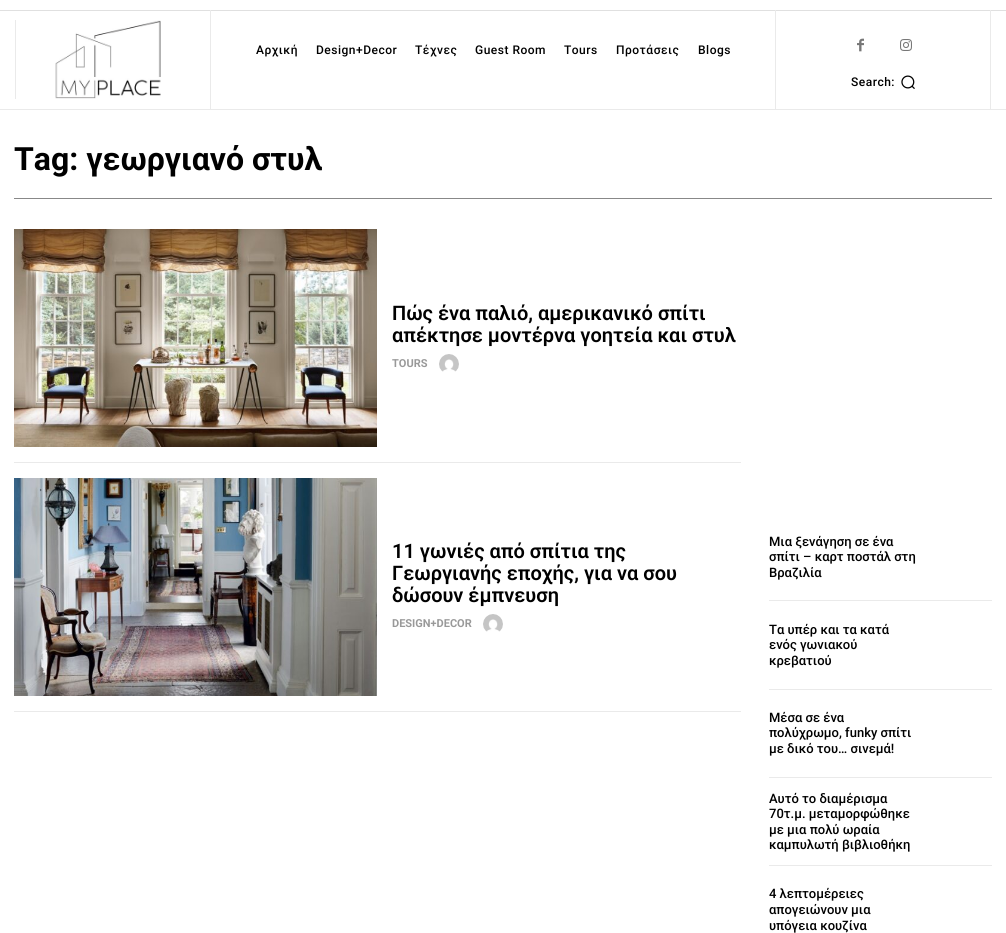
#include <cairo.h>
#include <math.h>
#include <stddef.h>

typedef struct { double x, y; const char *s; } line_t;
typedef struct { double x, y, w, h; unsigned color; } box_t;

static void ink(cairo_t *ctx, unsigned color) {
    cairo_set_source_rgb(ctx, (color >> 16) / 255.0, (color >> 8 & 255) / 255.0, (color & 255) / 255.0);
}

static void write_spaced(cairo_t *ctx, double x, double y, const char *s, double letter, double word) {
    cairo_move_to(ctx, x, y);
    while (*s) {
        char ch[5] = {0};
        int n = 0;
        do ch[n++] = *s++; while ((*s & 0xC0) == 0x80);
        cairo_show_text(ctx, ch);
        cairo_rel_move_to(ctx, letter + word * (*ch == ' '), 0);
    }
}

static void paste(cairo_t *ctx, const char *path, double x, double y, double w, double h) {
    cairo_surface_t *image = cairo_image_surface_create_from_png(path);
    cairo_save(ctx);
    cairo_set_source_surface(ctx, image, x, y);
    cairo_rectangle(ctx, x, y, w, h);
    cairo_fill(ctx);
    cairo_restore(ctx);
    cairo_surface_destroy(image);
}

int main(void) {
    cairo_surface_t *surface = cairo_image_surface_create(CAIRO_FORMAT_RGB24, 1006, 933);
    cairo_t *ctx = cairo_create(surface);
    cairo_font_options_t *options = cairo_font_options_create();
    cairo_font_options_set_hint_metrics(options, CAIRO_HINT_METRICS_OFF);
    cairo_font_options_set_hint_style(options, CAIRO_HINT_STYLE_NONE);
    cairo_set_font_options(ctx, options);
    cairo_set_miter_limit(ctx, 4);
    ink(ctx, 0xFFFFFF);
    cairo_paint(ctx);
    {
        static const box_t items[] = {
            {0, 109, 1006, 1, 0xEAEAEA},
            {0, 10, 1006, 1, 0xE0E0E0},
            {15, 20, 1, 79, 0xEAEAEA},
        };
        for (size_t i = 0; i < sizeof items / sizeof *items; i++) {
            ink(ctx, items[i].color);
            cairo_rectangle(ctx, items[i].x, items[i].y, items[i].w, items[i].h);
            cairo_fill(ctx);
        }
    }
    paste(ctx, "media/1.png", 55, 20, 106, 79);
    cairo_rectangle(ctx, 775, 10, 1, 99);
    cairo_fill(ctx);
    cairo_rectangle(ctx, 210, 10, 1, 99);
    cairo_fill(ctx);
    cairo_select_font_face(ctx, "Roboto Medium", CAIRO_FONT_SLANT_NORMAL, CAIRO_FONT_WEIGHT_NORMAL);
    cairo_set_font_size(ctx, 12);
    ink(ctx, 0x000000);
    {
        static const line_t items[] = {
            {256, 54, "Αρχική"},
            {316, 54, "Design+Decor"},
            {415, 54, "Τέχνες"},
            {475, 54, "Guest Room"},
            {564, 54, "Tours"},
            {616, 54, "Προτάσεις"},
            {698, 54, "Blogs"},
        };
        for (size_t i = 0; i < sizeof items / sizeof *items; i++) {
            write_spaced(ctx, items[i].x, items[i].y, items[i].s, 0.5, 0);
        }
    }
    ink(ctx, 0xEAEAEA);
    cairo_rectangle(ctx, 990, 10, 1, 99);
    cairo_fill(ctx);
    paste(ctx, "media/2.png", 857, 38, 7, 14);
    paste(ctx, "media/3.png", 900, 39, 12, 12);
    ink(ctx, 0x000000);
    write_spaced(ctx, 851, 86, "Search:", 0.5, 0);
    paste(ctx, "media/4.png", 901, 75, 14, 14);
    ink(ctx, 0x888888);
    cairo_rectangle(ctx, 14, 198, 978, 1);
    cairo_fill(ctx);
    cairo_select_font_face(ctx, "Roboto", CAIRO_FONT_SLANT_NORMAL, CAIRO_FONT_WEIGHT_BOLD);
    cairo_set_font_size(ctx, 32);
    ink(ctx, 0x000000);
    cairo_move_to(ctx, 14, 170);
    cairo_show_text(ctx, "Tag: γεωργιανό στυλ");
    ink(ctx, 0xEAEAEA);
    cairo_rectangle(ctx, 14, 462, 727, 1);
    cairo_fill(ctx);
    paste(ctx, "media/5.png", 14, 229, 363, 218);
    cairo_select_font_face(ctx, "Roboto SemiBold", CAIRO_FONT_SLANT_NORMAL, CAIRO_FONT_WEIGHT_NORMAL);
    cairo_set_font_size(ctx, 20);
    ink(ctx, 0x000000);
    cairo_move_to(ctx, 392, 320);
    cairo_show_text(ctx, "Πώς ένα παλιό, αμερικανικό σπίτι");
    cairo_move_to(ctx, 392, 342);
    cairo_show_text(ctx, "απέκτησε μοντέρνα γοητεία και στυλ");
    cairo_select_font_face(ctx, "Roboto", CAIRO_FONT_SLANT_NORMAL, CAIRO_FONT_WEIGHT_BOLD);
    cairo_set_font_size(ctx, 11);
    ink(ctx, 0x999999);
    cairo_move_to(ctx, 392, 367);
    cairo_show_text(ctx, "TOURS");
    paste(ctx, "media/6.png", 439, 354, 20, 18);
    ink(ctx, 0xEAEAEA);
    cairo_rectangle(ctx, 14, 711, 727, 1);
    cairo_fill(ctx);
    paste(ctx, "media/7.png", 14, 478, 363, 218);
    cairo_select_font_face(ctx, "Roboto SemiBold", CAIRO_FONT_SLANT_NORMAL, CAIRO_FONT_WEIGHT_NORMAL);
    cairo_set_font_size(ctx, 20);
    ink(ctx, 0x000000);
    {
        static const line_t items[] = {
            {392, 558, "11 γωνιές από σπίτια της"},
            {392, 580, "Γεωργιανής εποχής, για να σου"},
            {392, 602, "δώσουν έμπνευση"},
        };
        for (size_t i = 0; i < sizeof items / sizeof *items; i++) {
            cairo_move_to(ctx, items[i].x, items[i].y);
            cairo_show_text(ctx, items[i].s);
        }
    }
    cairo_select_font_face(ctx, "Roboto", CAIRO_FONT_SLANT_NORMAL, CAIRO_FONT_WEIGHT_BOLD);
    cairo_set_font_size(ctx, 11);
    ink(ctx, 0x999999);
    cairo_move_to(ctx, 392, 627);
    cairo_show_text(ctx, "DESIGN+DECOR");
    paste(ctx, "media/6.png", 483, 614, 20, 18);
    ink(ctx, 0xEAEAEA);
    cairo_rectangle(ctx, 769, 600, 223, 1);
    cairo_fill(ctx);
    cairo_select_font_face(ctx, "Roboto Medium", CAIRO_FONT_SLANT_NORMAL, CAIRO_FONT_WEIGHT_NORMAL);
    cairo_set_font_size(ctx, 13);
    ink(ctx, 0x000000);
    {
        static const line_t items[] = {
            {769, 546, "Μια ξενάγηση σε ένα"},
            {769, 561, "σπίτι – καρτ ποστάλ στη"},
            {769, 577, "Βραζιλία"},
        };
        for (size_t i = 0; i < sizeof items / sizeof *items; i++) {
            cairo_move_to(ctx, items[i].x, items[i].y);
            cairo_show_text(ctx, items[i].s);
        }
    }
    ink(ctx, 0xEAEAEA);
    cairo_rectangle(ctx, 769, 689, 223, 1);
    cairo_fill(ctx);
    ink(ctx, 0x000000);
    {
        static const line_t items[] = {
            {769, 634, "Τα υπέρ και τα κατά"},
            {769, 649, "ενός γωνιακού"},
            {769, 665, "κρεβατιού"},
        };
        for (size_t i = 0; i < sizeof items / sizeof *items; i++) {
            cairo_move_to(ctx, items[i].x, items[i].y);
            cairo_show_text(ctx, items[i].s);
        }
    }
    ink(ctx, 0xEAEAEA);
    cairo_rectangle(ctx, 769, 777, 223, 1);
    cairo_fill(ctx);
    ink(ctx, 0x000000);
    {
        static const line_t items[] = {
            {769, 722, "Μέσα σε ένα"},
            {769, 737, "πολύχρωμο, funky σπίτι"},
            {769, 753, "με δικό του… σινεμά!"},
        };
        for (size_t i = 0; i < sizeof items / sizeof *items; i++) {
            cairo_move_to(ctx, items[i].x, items[i].y);
            cairo_show_text(ctx, items[i].s);
        }
    }
    ink(ctx, 0xEAEAEA);
    cairo_rectangle(ctx, 769, 865, 223, 1);
    cairo_fill(ctx);
    ink(ctx, 0x000000);
    {
        static const line_t items[] = {
            {769, 803, "Αυτό τo διαμέρισμα"},
            {769, 818, "70τ.μ. μεταμορφώθηκε"},
            {769, 834, "με μια πολύ ωραία"},
            {769, 849, "καμπυλωτή βιβλιοθήκη"},
            {769, 898, "4 λεπτομέρειες"},
            {769, 914, "απογειώνουν μια"},
            {769, 930, "υπόγεια κουζίνα"},
        };
        for (size_t i = 0; i < sizeof items / sizeof *items; i++) {
            cairo_move_to(ctx, items[i].x, items[i].y);
            cairo_show_text(ctx, items[i].s);
        }
    }
    cairo_surface_write_to_png(surface, "image.png");
    cairo_font_options_destroy(options);
    cairo_destroy(ctx);
    cairo_surface_destroy(surface);
    return 0;
}
